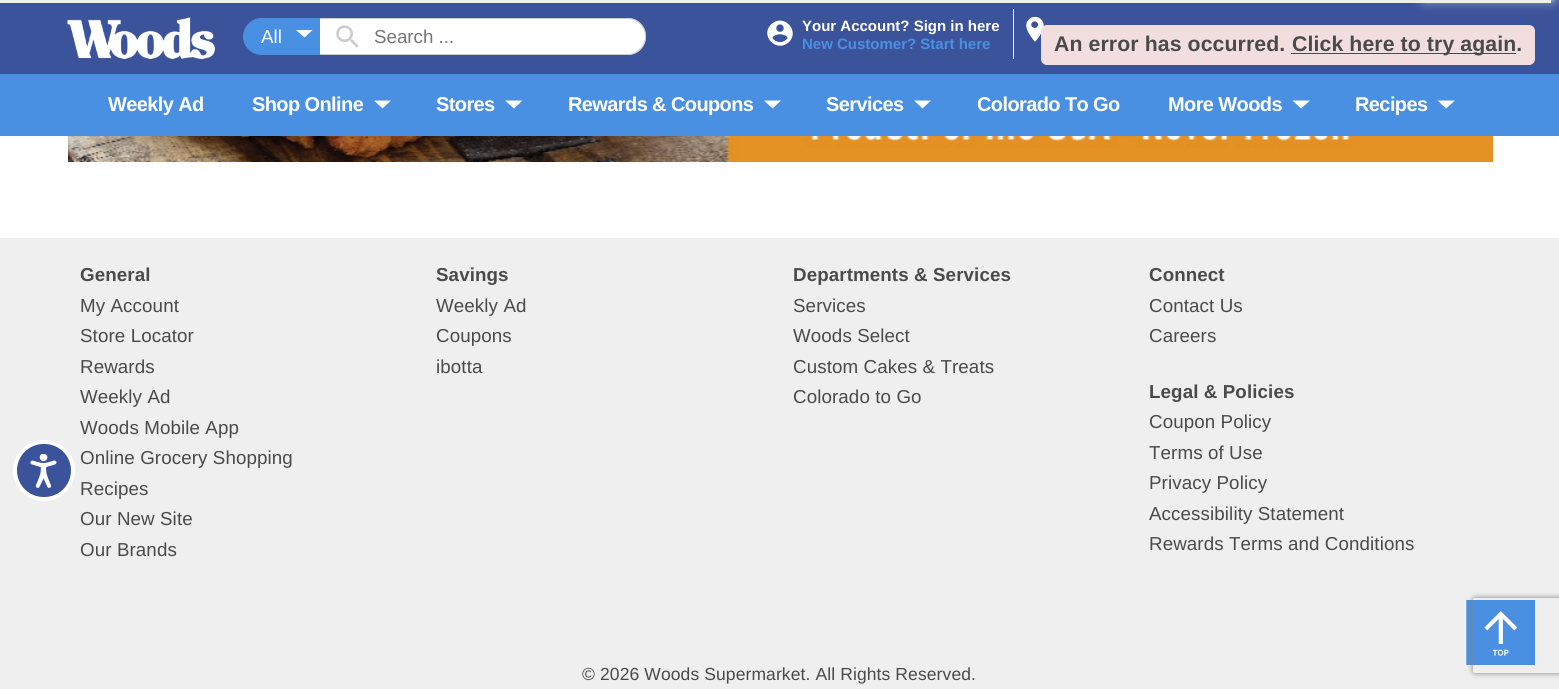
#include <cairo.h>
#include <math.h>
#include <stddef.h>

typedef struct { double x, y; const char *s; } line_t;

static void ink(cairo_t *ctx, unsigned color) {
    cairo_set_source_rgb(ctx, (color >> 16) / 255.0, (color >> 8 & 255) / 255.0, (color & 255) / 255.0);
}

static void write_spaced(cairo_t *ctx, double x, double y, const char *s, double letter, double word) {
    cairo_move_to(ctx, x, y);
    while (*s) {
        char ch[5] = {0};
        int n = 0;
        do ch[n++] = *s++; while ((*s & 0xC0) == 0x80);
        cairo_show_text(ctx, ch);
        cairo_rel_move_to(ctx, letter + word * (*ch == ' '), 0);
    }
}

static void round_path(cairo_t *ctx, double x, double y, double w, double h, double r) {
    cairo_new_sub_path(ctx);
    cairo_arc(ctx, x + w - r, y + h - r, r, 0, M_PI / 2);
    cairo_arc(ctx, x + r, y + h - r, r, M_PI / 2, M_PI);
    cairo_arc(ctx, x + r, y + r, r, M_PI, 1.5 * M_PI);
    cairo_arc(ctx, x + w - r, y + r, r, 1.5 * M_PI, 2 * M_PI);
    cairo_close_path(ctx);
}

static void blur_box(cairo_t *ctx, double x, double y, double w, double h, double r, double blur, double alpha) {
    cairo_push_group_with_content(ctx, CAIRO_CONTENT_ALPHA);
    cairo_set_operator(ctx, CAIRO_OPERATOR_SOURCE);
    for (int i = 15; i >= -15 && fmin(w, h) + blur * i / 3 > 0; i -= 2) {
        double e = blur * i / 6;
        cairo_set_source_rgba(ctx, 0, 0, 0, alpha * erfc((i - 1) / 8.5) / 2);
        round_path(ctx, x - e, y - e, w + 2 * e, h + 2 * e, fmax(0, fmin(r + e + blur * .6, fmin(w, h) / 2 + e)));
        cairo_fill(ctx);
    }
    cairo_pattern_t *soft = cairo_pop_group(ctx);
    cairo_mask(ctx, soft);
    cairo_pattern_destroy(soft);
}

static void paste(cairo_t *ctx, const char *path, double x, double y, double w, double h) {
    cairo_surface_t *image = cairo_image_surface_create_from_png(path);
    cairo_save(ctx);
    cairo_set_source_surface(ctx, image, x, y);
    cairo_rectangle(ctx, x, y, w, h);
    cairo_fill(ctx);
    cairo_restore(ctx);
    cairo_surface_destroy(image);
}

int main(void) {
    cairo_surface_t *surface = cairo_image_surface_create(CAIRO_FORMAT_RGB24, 1559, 689);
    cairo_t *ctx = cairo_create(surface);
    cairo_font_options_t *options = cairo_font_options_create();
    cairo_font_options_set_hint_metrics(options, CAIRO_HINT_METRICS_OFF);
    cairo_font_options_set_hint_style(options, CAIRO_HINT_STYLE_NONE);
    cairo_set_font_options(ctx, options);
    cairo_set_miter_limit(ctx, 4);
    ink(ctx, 0xFFFFFF);
    cairo_paint(ctx);
    ink(ctx, 0x3B539A);
    cairo_rectangle(ctx, 0, 0, 1559, 74);
    cairo_fill(ctx);
    paste(ctx, "media/1.png", 67, 17, 148, 42);
    ink(ctx, 0xFFFFFF);
    cairo_new_path(ctx);
    cairo_move_to(ctx, 319, 18);
    cairo_line_to(ctx, 627.5, 18);
    cairo_curve_to(ctx, 637.5, 18, 646, 26.5, 646, 36.5);
    cairo_curve_to(ctx, 646, 46.5, 637.5, 55, 627.5, 55);
    cairo_line_to(ctx, 319, 55);
    cairo_close_path(ctx);
    cairo_fill(ctx);
    ink(ctx, 0xCCCCCC);
    cairo_set_fill_rule(ctx, CAIRO_FILL_RULE_EVEN_ODD);
    cairo_new_path(ctx);
    cairo_move_to(ctx, 319, 18);
    cairo_line_to(ctx, 628, 18);
    cairo_curve_to(ctx, 638, 18, 646, 26, 646, 36);
    cairo_curve_to(ctx, 646, 47, 638, 55, 628, 55);
    cairo_line_to(ctx, 319, 55);
    cairo_close_path(ctx);
    cairo_move_to(ctx, 319, 19);
    cairo_line_to(ctx, 628, 19);
    cairo_curve_to(ctx, 637, 19, 645, 27, 645, 36);
    cairo_curve_to(ctx, 645, 46, 637, 54, 628, 54);
    cairo_line_to(ctx, 319, 54);
    cairo_close_path(ctx);
    cairo_fill(ctx);
    ink(ctx, 0x4A90E2);
    cairo_new_path(ctx);
    cairo_move_to(ctx, 261.5, 18);
    cairo_line_to(ctx, 320, 18);
    cairo_line_to(ctx, 320, 55);
    cairo_line_to(ctx, 261.5, 55);
    cairo_curve_to(ctx, 251.5, 55, 243, 46.5, 243, 36.5);
    cairo_curve_to(ctx, 243, 26.5, 251.5, 18, 261.5, 18);
    cairo_close_path(ctx);
    cairo_fill(ctx);
    cairo_select_font_face(ctx, "Liberation Sans", CAIRO_FONT_SLANT_NORMAL, CAIRO_FONT_WEIGHT_NORMAL);
    cairo_set_font_size(ctx, 18.75);
    ink(ctx, 0xFFFFFF);
    cairo_move_to(ctx, 261, 43);
    cairo_show_text(ctx, "All");
    cairo_set_fill_rule(ctx, CAIRO_FILL_RULE_WINDING);
    cairo_new_path(ctx);
    cairo_move_to(ctx, 296, 30);
    cairo_line_to(ctx, 312.5, 30);
    cairo_line_to(ctx, 304.5, 37.5);
    cairo_close_path(ctx);
    cairo_fill(ctx);
    paste(ctx, "media/2.png", 336, 25, 23, 23);
    ink(ctx, 0x757575);
    cairo_move_to(ctx, 374, 43);
    cairo_show_text(ctx, "Search ...");
    ink(ctx, 0xFFFFFF);
    cairo_new_path(ctx);
    cairo_move_to(ctx, 789, 42);
    cairo_curve_to(ctx, 777, 53.5, 759.5, 36, 771, 24.5);
    cairo_curve_to(ctx, 783, 12.5, 800.5, 30.5, 789, 42);
    cairo_close_path(ctx);
    cairo_fill(ctx);
    paste(ctx, "media/3.png", 772, 24, 16, 19);
    cairo_select_font_face(ctx, "Liberation Sans", CAIRO_FONT_SLANT_NORMAL, CAIRO_FONT_WEIGHT_BOLD);
    cairo_set_font_size(ctx, 15);
    cairo_move_to(ctx, 802, 31);
    cairo_show_text(ctx, "Your Account? Sign in here");
    ink(ctx, 0x4A90E2);
    cairo_move_to(ctx, 802, 49);
    cairo_show_text(ctx, "New Customer? Start here");
    ink(ctx, 0xEFEFEF);
    cairo_rectangle(ctx, 1013, 9, 1, 50);
    cairo_fill(ctx);
    paste(ctx, "media/4.png", 1026, 16, 18, 26);
    paste(ctx, "media/5.png", 1031, 21, 7, 7);
    ink(ctx, 0x4A90E2);
    cairo_rectangle(ctx, 0, 74, 1559, 62);
    cairo_fill(ctx);
    cairo_set_font_size(ctx, 20);
    ink(ctx, 0xFFFFFF);
    write_spaced(ctx, 108, 111, "Weekly Ad", -0.6, 0);
    write_spaced(ctx, 252, 111, "Shop Online", -0.6, 0);
    cairo_new_path(ctx);
    cairo_move_to(ctx, 374, 100.5);
    cairo_line_to(ctx, 391, 100.5);
    cairo_line_to(ctx, 382.5, 108.5);
    cairo_close_path(ctx);
    cairo_fill(ctx);
    write_spaced(ctx, 436, 111, "Stores", -0.6, 0);
    cairo_new_path(ctx);
    cairo_move_to(ctx, 505, 100.5);
    cairo_line_to(ctx, 522.5, 100.5);
    cairo_line_to(ctx, 514, 108.5);
    cairo_close_path(ctx);
    cairo_fill(ctx);
    write_spaced(ctx, 568, 111, "Rewards & Coupons", -0.6, 0);
    cairo_new_path(ctx);
    cairo_move_to(ctx, 764, 100.5);
    cairo_line_to(ctx, 781, 100.5);
    cairo_line_to(ctx, 772.5, 108.5);
    cairo_close_path(ctx);
    cairo_fill(ctx);
    write_spaced(ctx, 826, 111, "Services", -0.6, 0);
    cairo_new_path(ctx);
    cairo_move_to(ctx, 914, 100.5);
    cairo_line_to(ctx, 931, 100.5);
    cairo_line_to(ctx, 922.5, 108.5);
    cairo_close_path(ctx);
    cairo_fill(ctx);
    write_spaced(ctx, 977, 111, "Colorado To Go", -0.6, 0);
    write_spaced(ctx, 1168, 111, "More Woods", -0.6, 0);
    cairo_new_path(ctx);
    cairo_move_to(ctx, 1292.5, 100.5);
    cairo_line_to(ctx, 1310, 100.5);
    cairo_line_to(ctx, 1301, 108.5);
    cairo_close_path(ctx);
    cairo_fill(ctx);
    write_spaced(ctx, 1355, 111, "Recipes", -0.6, 0);
    cairo_new_path(ctx);
    cairo_move_to(ctx, 1437.5, 100.5);
    cairo_line_to(ctx, 1455, 100.5);
    cairo_line_to(ctx, 1446, 108.5);
    cairo_close_path(ctx);
    cairo_fill(ctx);
    paste(ctx, "media/6.png", 68, 136, 1425, 26);
    ink(ctx, 0xEFEFEF);
    cairo_rectangle(ctx, 0, 238, 1559, 451);
    cairo_fill(ctx);
    cairo_set_font_size(ctx, 18.75);
    ink(ctx, 0x4A4A4A);
    write_spaced(ctx, 80, 281, "General", 0.1, 0);
    cairo_select_font_face(ctx, "Liberation Sans", CAIRO_FONT_SLANT_NORMAL, CAIRO_FONT_WEIGHT_NORMAL);
    {
        static const line_t items[] = {
            {80, 312, "My Account"},
            {80, 342, "Store Locator"},
            {80, 373, "Rewards"},
            {80, 403, "Weekly Ad"},
            {80, 434, "Woods Mobile App"},
            {80, 464, "Online Grocery Shopping"},
            {80, 495, "Recipes"},
            {80, 525, "Our New Site"},
            {80, 556, "Our Brands"},
        };
        for (size_t i = 0; i < sizeof items / sizeof *items; i++) {
            write_spaced(ctx, items[i].x, items[i].y, items[i].s, 0.1, 0);
        }
    }
    cairo_select_font_face(ctx, "Liberation Sans", CAIRO_FONT_SLANT_NORMAL, CAIRO_FONT_WEIGHT_BOLD);
    write_spaced(ctx, 436, 281, "Savings", 0.1, 0);
    cairo_select_font_face(ctx, "Liberation Sans", CAIRO_FONT_SLANT_NORMAL, CAIRO_FONT_WEIGHT_NORMAL);
    {
        static const line_t items[] = {
            {436, 312, "Weekly Ad"},
            {436, 342, "Coupons"},
            {436, 373, "ibotta"},
        };
        for (size_t i = 0; i < sizeof items / sizeof *items; i++) {
            write_spaced(ctx, items[i].x, items[i].y, items[i].s, 0.1, 0);
        }
    }
    cairo_select_font_face(ctx, "Liberation Sans", CAIRO_FONT_SLANT_NORMAL, CAIRO_FONT_WEIGHT_BOLD);
    write_spaced(ctx, 793, 281, "Departments & Services", 0.1, 0);
    cairo_select_font_face(ctx, "Liberation Sans", CAIRO_FONT_SLANT_NORMAL, CAIRO_FONT_WEIGHT_NORMAL);
    {
        static const line_t items[] = {
            {793, 312, "Services"},
            {793, 342, "Woods Select"},
            {793, 373, "Custom Cakes & Treats"},
            {793, 403, "Colorado to Go"},
        };
        for (size_t i = 0; i < sizeof items / sizeof *items; i++) {
            write_spaced(ctx, items[i].x, items[i].y, items[i].s, 0.1, 0);
        }
    }
    cairo_select_font_face(ctx, "Liberation Sans", CAIRO_FONT_SLANT_NORMAL, CAIRO_FONT_WEIGHT_BOLD);
    write_spaced(ctx, 1149, 281, "Connect", 0.1, 0);
    cairo_select_font_face(ctx, "Liberation Sans", CAIRO_FONT_SLANT_NORMAL, CAIRO_FONT_WEIGHT_NORMAL);
    write_spaced(ctx, 1149, 312, "Contact Us", 0.1, 0);
    write_spaced(ctx, 1149, 342, "Careers", 0.1, 0);
    cairo_select_font_face(ctx, "Liberation Sans", CAIRO_FONT_SLANT_NORMAL, CAIRO_FONT_WEIGHT_BOLD);
    write_spaced(ctx, 1149, 398, "Legal & Policies", 0.1, 0);
    cairo_select_font_face(ctx, "Liberation Sans", CAIRO_FONT_SLANT_NORMAL, CAIRO_FONT_WEIGHT_NORMAL);
    {
        static const line_t items[] = {
            {1149, 428, "Coupon Policy"},
            {1149, 459, "Terms of Use"},
            {1149, 489, "Privacy Policy"},
            {1149, 520, "Accessibility Statement"},
            {1149, 550, "Rewards Terms and Conditions"},
        };
        for (size_t i = 0; i < sizeof items / sizeof *items; i++) {
            write_spaced(ctx, items[i].x, items[i].y, items[i].s, 0.1, 0);
        }
    }
    cairo_set_font_size(ctx, 17.5);
    write_spaced(ctx, 582, 680, "© 2026 Woods Supermarket. All Rights Reserved.", 0.1, 0);
    ink(ctx, 0xFFFFFF);
    cairo_rectangle(ctx, 1466, 600, 52, 65);
    cairo_fill(ctx);
    paste(ctx, "media/7.png", 1466, 600, 69, 65);
    ink(ctx, 0xEFEFEF);
    cairo_rectangle(ctx, 0, 0, 1551, 3);
    cairo_fill(ctx);
    ink(ctx, 0xEFEFEF);
    blur_box(ctx, 1426, -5, 125, 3, 0, 3, 1);
    blur_box(ctx, 1426, -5, 125, 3, 0, 6.5, 1);
    ink(ctx, 0xF2DEDE);
    round_path(ctx, 1041, 25, 494, 40, 6);
    cairo_fill(ctx);
    cairo_select_font_face(ctx, "Liberation Sans", CAIRO_FONT_SLANT_NORMAL, CAIRO_FONT_WEIGHT_BOLD);
    cairo_set_font_size(ctx, 21.25);
    ink(ctx, 0x4A4A4A);
    write_spaced(ctx, 1054, 51, "An error has occurred.", 0.1, 0);
    cairo_rectangle(ctx, 1291, 53, 225, 1);
    cairo_fill(ctx);
    write_spaced(ctx, 1292, 51, "Click here to try again.", 0.1, 0);
    ink(ctx, 0x3B539A);
    round_path(ctx, 15, 442, 58, 57, 28.5);
    cairo_fill_preserve(ctx);
    ink(ctx, 0xFFFFFF);
    cairo_set_line_width(ctx, 4);
    cairo_stroke(ctx);
    paste(ctx, "media/8.png", 30, 454, 27, 34);
    cairo_save(ctx);
    cairo_set_fill_rule(ctx, CAIRO_FILL_RULE_EVEN_ODD);
    cairo_new_path(ctx);
    cairo_move_to(ctx, 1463, 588);
    cairo_line_to(ctx, 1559, 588);
    cairo_line_to(ctx, 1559, 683);
    cairo_line_to(ctx, 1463, 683);
    cairo_close_path(ctx);
    cairo_move_to(ctx, 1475.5, 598);
    cairo_line_to(ctx, 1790.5, 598);
    cairo_curve_to(ctx, 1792, 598, 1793, 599, 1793, 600.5);
    cairo_line_to(ctx, 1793, 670.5);
    cairo_curve_to(ctx, 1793, 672, 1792, 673, 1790.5, 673);
    cairo_line_to(ctx, 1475.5, 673);
    cairo_curve_to(ctx, 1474, 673, 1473, 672, 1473, 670.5);
    cairo_line_to(ctx, 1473, 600.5);
    cairo_curve_to(ctx, 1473, 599, 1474, 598, 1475.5, 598);
    cairo_close_path(ctx);
    cairo_clip(ctx);
    ink(ctx, 0x808080);
    blur_box(ctx, 1473, 598, 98, 75, 2.5, 3, 1);
    cairo_restore(ctx);
    cairo_surface_write_to_png(surface, "image.png");
    cairo_font_options_destroy(options);
    cairo_destroy(ctx);
    cairo_surface_destroy(surface);
    return 0;
}
